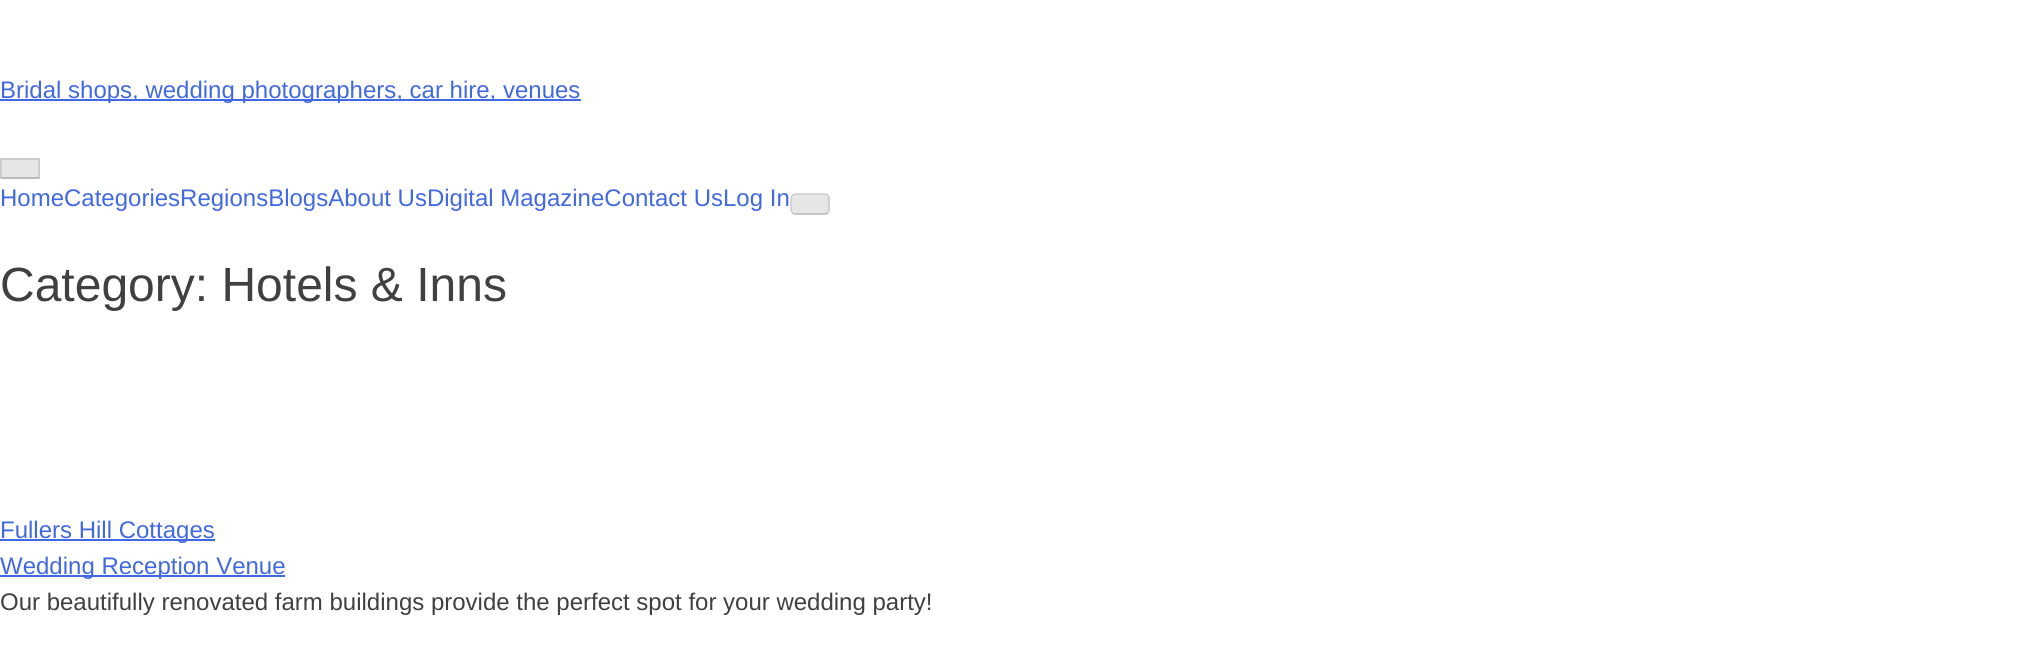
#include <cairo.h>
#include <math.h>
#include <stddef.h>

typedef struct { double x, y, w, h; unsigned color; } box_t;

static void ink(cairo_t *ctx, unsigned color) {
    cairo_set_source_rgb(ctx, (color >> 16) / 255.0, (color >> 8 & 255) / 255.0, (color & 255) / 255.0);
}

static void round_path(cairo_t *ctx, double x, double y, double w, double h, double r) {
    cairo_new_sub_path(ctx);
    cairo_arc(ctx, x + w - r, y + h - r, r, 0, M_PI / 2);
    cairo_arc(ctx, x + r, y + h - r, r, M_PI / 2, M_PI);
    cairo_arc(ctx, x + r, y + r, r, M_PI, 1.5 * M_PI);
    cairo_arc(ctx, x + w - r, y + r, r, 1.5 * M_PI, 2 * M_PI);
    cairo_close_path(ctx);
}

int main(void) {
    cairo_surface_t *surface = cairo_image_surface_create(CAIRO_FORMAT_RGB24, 2038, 658);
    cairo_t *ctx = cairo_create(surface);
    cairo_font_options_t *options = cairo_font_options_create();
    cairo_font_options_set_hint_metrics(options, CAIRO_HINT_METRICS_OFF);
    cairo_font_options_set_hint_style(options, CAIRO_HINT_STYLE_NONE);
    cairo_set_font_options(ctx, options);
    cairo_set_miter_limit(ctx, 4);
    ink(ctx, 0xFFFFFF);
    cairo_paint(ctx);
    ink(ctx, 0x4169E1);
    cairo_rectangle(ctx, 0, 99, 581, 2);
    cairo_fill(ctx);
    cairo_select_font_face(ctx, "Liberation Sans", CAIRO_FONT_SLANT_NORMAL, CAIRO_FONT_WEIGHT_NORMAL);
    cairo_set_font_size(ctx, 24);
    cairo_move_to(ctx, 0, 98);
    cairo_show_text(ctx, "Bridal shops, wedding photographers, car hire, venues");
    {
        static const box_t items[] = {
            {2, 160, 36, 17, 0xE6E6E6},
            {0, 158, 39, 2, 0xCCCCCC},
            {38, 158, 2, 21, 0xCCCCCC},
            {0, 177, 39, 2, 0xBBBBBB},
            {0, 158, 2, 21, 0xCCCCCC},
        };
        for (size_t i = 0; i < sizeof items / sizeof *items; i++) {
            ink(ctx, items[i].color);
            cairo_rectangle(ctx, items[i].x, items[i].y, items[i].w, items[i].h);
            cairo_fill(ctx);
        }
    }
    ink(ctx, 0x4169E1);
    cairo_move_to(ctx, 0, 206);
    cairo_show_text(ctx, "HomeCategoriesRegionsBlogsAbout UsDigital MagazineContact UsLog In");
    ink(ctx, 0xE6E6E6);
    round_path(ctx, 791, 194, 39, 21, 5);
    cairo_fill(ctx);
    cairo_new_path(ctx);
    cairo_move_to(ctx, 827.5, 212.5);
    cairo_curve_to(ctx, 827, 213.5, 826, 214, 825, 214);
    cairo_line_to(ctx, 795, 214);
    cairo_curve_to(ctx, 794, 214, 793, 213.5, 792.5, 212.5);
    ink(ctx, 0xBBBBBB);
    cairo_set_line_width(ctx, 1.5);
    cairo_stroke(ctx);
    cairo_new_path(ctx);
    cairo_move_to(ctx, 792.5, 212.5);
    cairo_curve_to(ctx, 790.5, 210.5, 791, 206.5, 791, 204);
    cairo_curve_to(ctx, 791, 194.5, 790.5, 194, 800, 194);
    cairo_line_to(ctx, 820, 194);
    cairo_curve_to(ctx, 829.5, 194, 829, 194.5, 829, 204);
    cairo_curve_to(ctx, 829, 206.5, 829.5, 210.5, 827.5, 212.5);
    ink(ctx, 0xCCCCCC);
    cairo_stroke(ctx);
    cairo_set_font_size(ctx, 48);
    ink(ctx, 0x404040);
    cairo_move_to(ctx, 0, 301);
    cairo_show_text(ctx, "Category: Hotels & Inns");
    ink(ctx, 0x4169E1);
    cairo_rectangle(ctx, 0, 539, 215, 2);
    cairo_fill(ctx);
    cairo_set_font_size(ctx, 24);
    cairo_move_to(ctx, 0, 538);
    cairo_show_text(ctx, "Fullers Hill Cottages");
    cairo_rectangle(ctx, 0, 575, 285, 2);
    cairo_fill(ctx);
    cairo_move_to(ctx, 0, 574);
    cairo_show_text(ctx, "Wedding Reception Venue");
    ink(ctx, 0x404040);
    cairo_move_to(ctx, 0, 610);
    cairo_show_text(ctx, "Our beautifully renovated farm buildings provide the perfect spot for your wedding party!");
    cairo_surface_write_to_png(surface, "image.png");
    cairo_font_options_destroy(options);
    cairo_destroy(ctx);
    cairo_surface_destroy(surface);
    return 0;
}
